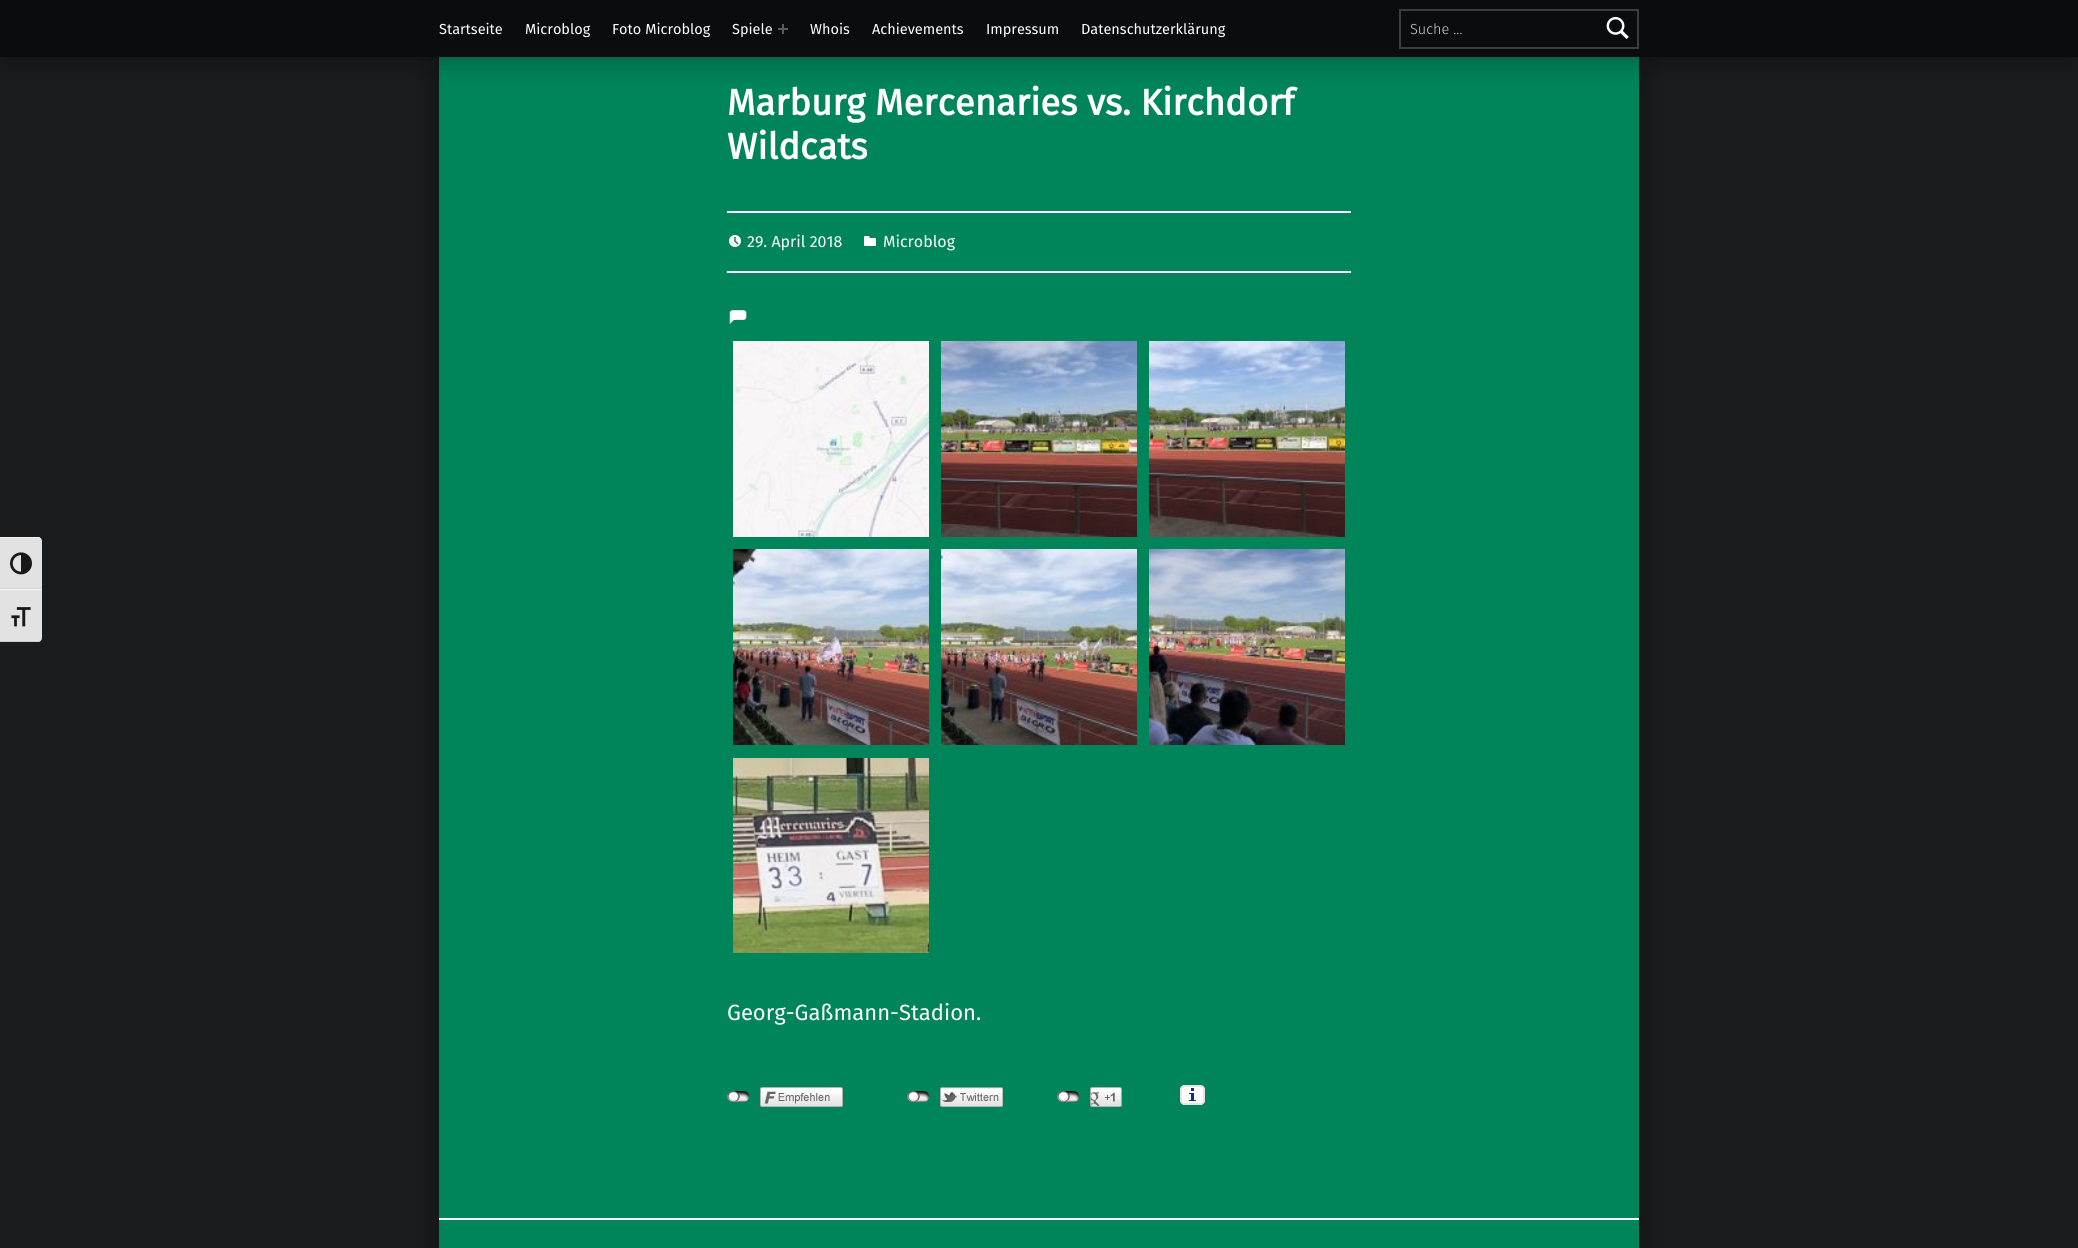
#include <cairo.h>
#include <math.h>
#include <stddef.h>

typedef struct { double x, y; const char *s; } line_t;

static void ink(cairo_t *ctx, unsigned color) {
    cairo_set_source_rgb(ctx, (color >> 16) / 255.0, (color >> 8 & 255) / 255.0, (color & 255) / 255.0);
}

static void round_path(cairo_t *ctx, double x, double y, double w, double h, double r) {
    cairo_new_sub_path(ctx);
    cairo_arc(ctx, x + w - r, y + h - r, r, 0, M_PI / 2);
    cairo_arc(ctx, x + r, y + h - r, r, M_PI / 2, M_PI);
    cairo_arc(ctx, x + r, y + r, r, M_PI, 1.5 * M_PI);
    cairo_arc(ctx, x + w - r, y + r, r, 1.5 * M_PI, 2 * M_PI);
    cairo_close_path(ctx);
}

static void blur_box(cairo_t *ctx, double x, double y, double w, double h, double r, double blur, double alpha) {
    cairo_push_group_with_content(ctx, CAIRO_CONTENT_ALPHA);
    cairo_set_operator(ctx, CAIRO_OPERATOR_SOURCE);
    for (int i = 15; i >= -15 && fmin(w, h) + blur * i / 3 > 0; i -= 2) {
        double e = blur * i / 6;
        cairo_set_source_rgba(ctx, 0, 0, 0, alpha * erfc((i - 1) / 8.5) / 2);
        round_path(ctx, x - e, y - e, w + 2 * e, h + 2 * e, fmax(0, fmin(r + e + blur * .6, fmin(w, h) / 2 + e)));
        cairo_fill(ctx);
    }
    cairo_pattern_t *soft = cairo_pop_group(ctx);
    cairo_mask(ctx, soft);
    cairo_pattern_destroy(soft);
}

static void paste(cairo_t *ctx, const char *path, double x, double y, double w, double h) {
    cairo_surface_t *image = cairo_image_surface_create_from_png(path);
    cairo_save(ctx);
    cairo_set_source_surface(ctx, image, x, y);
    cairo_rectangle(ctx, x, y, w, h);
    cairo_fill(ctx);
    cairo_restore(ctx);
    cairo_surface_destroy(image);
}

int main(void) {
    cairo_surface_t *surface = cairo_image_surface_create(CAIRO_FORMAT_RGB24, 2078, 1248);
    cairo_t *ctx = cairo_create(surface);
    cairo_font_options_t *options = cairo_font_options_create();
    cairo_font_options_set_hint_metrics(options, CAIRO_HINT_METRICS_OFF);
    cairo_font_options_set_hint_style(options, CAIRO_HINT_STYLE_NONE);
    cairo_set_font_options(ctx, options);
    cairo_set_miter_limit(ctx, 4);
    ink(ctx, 0x1A1C1E);
    cairo_paint(ctx);
    ink(ctx, 0xE2E2E2);
    cairo_new_path(ctx);
    cairo_move_to(ctx, 0, 537);
    cairo_line_to(ctx, 38, 537);
    cairo_curve_to(ctx, 40, 537, 42, 539, 42, 541);
    cairo_line_to(ctx, 42, 589);
    cairo_line_to(ctx, 0, 589);
    cairo_close_path(ctx);
    cairo_fill(ctx);
    ink(ctx, 0xF5F5F5);
    cairo_new_path(ctx);
    cairo_move_to(ctx, 0, 537);
    cairo_line_to(ctx, 0, 538);
    cairo_line_to(ctx, 38, 538);
    cairo_curve_to(ctx, 40, 538, 42, 539, 42, 541);
    cairo_curve_to(ctx, 42, 539, 40, 537, 38, 537);
    cairo_close_path(ctx);
    cairo_fill(ctx);
    ink(ctx, 0xD2D2D2);
    cairo_rectangle(ctx, 0, 588, 42, 1);
    cairo_fill(ctx);
    paste(ctx, "media/1.png", 10, 552, 22, 23);
    ink(ctx, 0xE2E2E2);
    cairo_new_path(ctx);
    cairo_move_to(ctx, 0, 589);
    cairo_line_to(ctx, 42, 589);
    cairo_line_to(ctx, 42, 638);
    cairo_curve_to(ctx, 42, 640, 40, 642, 38, 642);
    cairo_line_to(ctx, 0, 642);
    cairo_close_path(ctx);
    cairo_fill(ctx);
    ink(ctx, 0xF5F5F5);
    cairo_rectangle(ctx, 0, 589, 42, 1);
    cairo_fill(ctx);
    ink(ctx, 0xD2D2D2);
    cairo_new_path(ctx);
    cairo_move_to(ctx, 0, 641);
    cairo_line_to(ctx, 0, 642);
    cairo_line_to(ctx, 38, 642);
    cairo_curve_to(ctx, 40, 642, 42, 640, 42, 638);
    cairo_curve_to(ctx, 42, 640, 40, 641, 38, 641);
    cairo_close_path(ctx);
    cairo_fill(ctx);
    paste(ctx, "media/2.png", 11, 607, 20, 20);
    ink(ctx, 0x000000);
    blur_box(ctx, 439, -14, 1200, 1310, 0, 16, 0.4);
    ink(ctx, 0x00855B);
    cairo_rectangle(ctx, 439, 57, 1200, 1161);
    cairo_fill(ctx);
    ink(ctx, 0x000000);
    blur_box(ctx, 0, 0, 2078, 57, 0, 16, 0.4);
    ink(ctx, 0x0A0C0E);
    cairo_rectangle(ctx, 0, 0, 2078, 57);
    cairo_fill(ctx);
    cairo_select_font_face(ctx, "Fira Sans", CAIRO_FONT_SLANT_NORMAL, CAIRO_FONT_WEIGHT_NORMAL);
    cairo_set_font_size(ctx, 14.5);
    ink(ctx, 0xFFFFFF);
    {
        static const line_t items[] = {
            {439, 34, "Startseite"},
            {525, 34, "Microblog"},
            {612, 34, "Foto Microblog"},
            {732, 34, "Spiele"},
        };
        for (size_t i = 0; i < sizeof items / sizeof *items; i++) {
            cairo_move_to(ctx, items[i].x, items[i].y);
            cairo_show_text(ctx, items[i].s);
        }
    }
    ink(ctx, 0x5B5C5E);
    cairo_rectangle(ctx, 778, 28, 10, 2);
    cairo_fill(ctx);
    cairo_rectangle(ctx, 782, 24, 2, 10);
    cairo_fill(ctx);
    ink(ctx, 0xFFFFFF);
    {
        static const line_t items[] = {
            {810, 34, "Whois"},
            {872, 34, "Achievements"},
            {986, 34, "Impressum"},
            {1081, 34, "Datenschutzerklärung"},
        };
        for (size_t i = 0; i < sizeof items / sizeof *items; i++) {
            cairo_move_to(ctx, items[i].x, items[i].y);
            cairo_show_text(ctx, items[i].s);
        }
    }
    cairo_rectangle(ctx, 1400, 10, 238, 38);
    ink(ctx, 0x3B3D3E);
    cairo_stroke(ctx);
    cairo_select_font_face(ctx, "Fira Sans Light", CAIRO_FONT_SLANT_NORMAL, CAIRO_FONT_WEIGHT_NORMAL);
    ink(ctx, 0xCECECF);
    cairo_move_to(ctx, 1410, 34);
    cairo_show_text(ctx, "Suche …");
    paste(ctx, "media/3.png", 1606, 16, 23, 23);
    cairo_select_font_face(ctx, "Fira Sans", CAIRO_FONT_SLANT_NORMAL, CAIRO_FONT_WEIGHT_BOLD);
    cairo_set_font_size(ctx, 36.5);
    ink(ctx, 0xFFFFFF);
    cairo_move_to(ctx, 727, 115);
    cairo_show_text(ctx, "Marburg Mercenaries vs. Kirchdorf");
    cairo_move_to(ctx, 727, 159);
    cairo_show_text(ctx, "Wildcats");
    cairo_rectangle(ctx, 727, 211, 624, 2);
    cairo_fill(ctx);
    cairo_rectangle(ctx, 727, 271, 624, 2);
    cairo_fill(ctx);
    paste(ctx, "media/4.png", 729, 235, 12, 12);
    cairo_select_font_face(ctx, "Fira Sans", CAIRO_FONT_SLANT_NORMAL, CAIRO_FONT_WEIGHT_NORMAL);
    cairo_set_font_size(ctx, 16);
    cairo_move_to(ctx, 747, 247);
    cairo_show_text(ctx, "29. April 2018");
    paste(ctx, "media/5.png", 864, 236, 12, 10);
    cairo_move_to(ctx, 883, 247);
    cairo_show_text(ctx, "Microblog");
    paste(ctx, "media/6.png", 729, 310, 18, 14);
    paste(ctx, "media/7.png", 733, 341, 196, 196);
    paste(ctx, "media/8.png", 941, 341, 196, 196);
    paste(ctx, "media/9.png", 1149, 341, 196, 196);
    paste(ctx, "media/10.png", 733, 549, 196, 196);
    paste(ctx, "media/11.png", 941, 549, 196, 196);
    paste(ctx, "media/12.png", 1149, 549, 196, 196);
    paste(ctx, "media/13.png", 733, 758, 196, 195);
    cairo_set_font_size(ctx, 22);
    cairo_move_to(ctx, 727, 1020);
    cairo_show_text(ctx, "Georg-Gaßmann-Stadion.");
    paste(ctx, "media/14.png", 727, 1091, 23, 12);
    paste(ctx, "media/15.png", 760, 1087, 83, 20);
    paste(ctx, "media/14.png", 907, 1091, 23, 12);
    paste(ctx, "media/16.png", 940, 1087, 63, 20);
    paste(ctx, "media/14.png", 1057, 1091, 23, 12);
    paste(ctx, "media/17.png", 1090, 1087, 32, 20);
    round_path(ctx, 1180, 1085, 25, 20, 5);
    cairo_fill(ctx);
    paste(ctx, "media/18.png", 1189, 1088, 7, 13);
    round_path(ctx, 1181, 1086, 23, 18, 4);
    ink(ctx, 0xE7E3E3);
    cairo_stroke(ctx);
    ink(ctx, 0x00855B);
    cairo_rectangle(ctx, 439, 1220, 1200, 28);
    cairo_fill(ctx);
    ink(ctx, 0xFFFFFF);
    cairo_rectangle(ctx, 439, 1218, 1200, 2);
    cairo_fill(ctx);
    cairo_surface_write_to_png(surface, "image.png");
    cairo_font_options_destroy(options);
    cairo_destroy(ctx);
    cairo_surface_destroy(surface);
    return 0;
}
